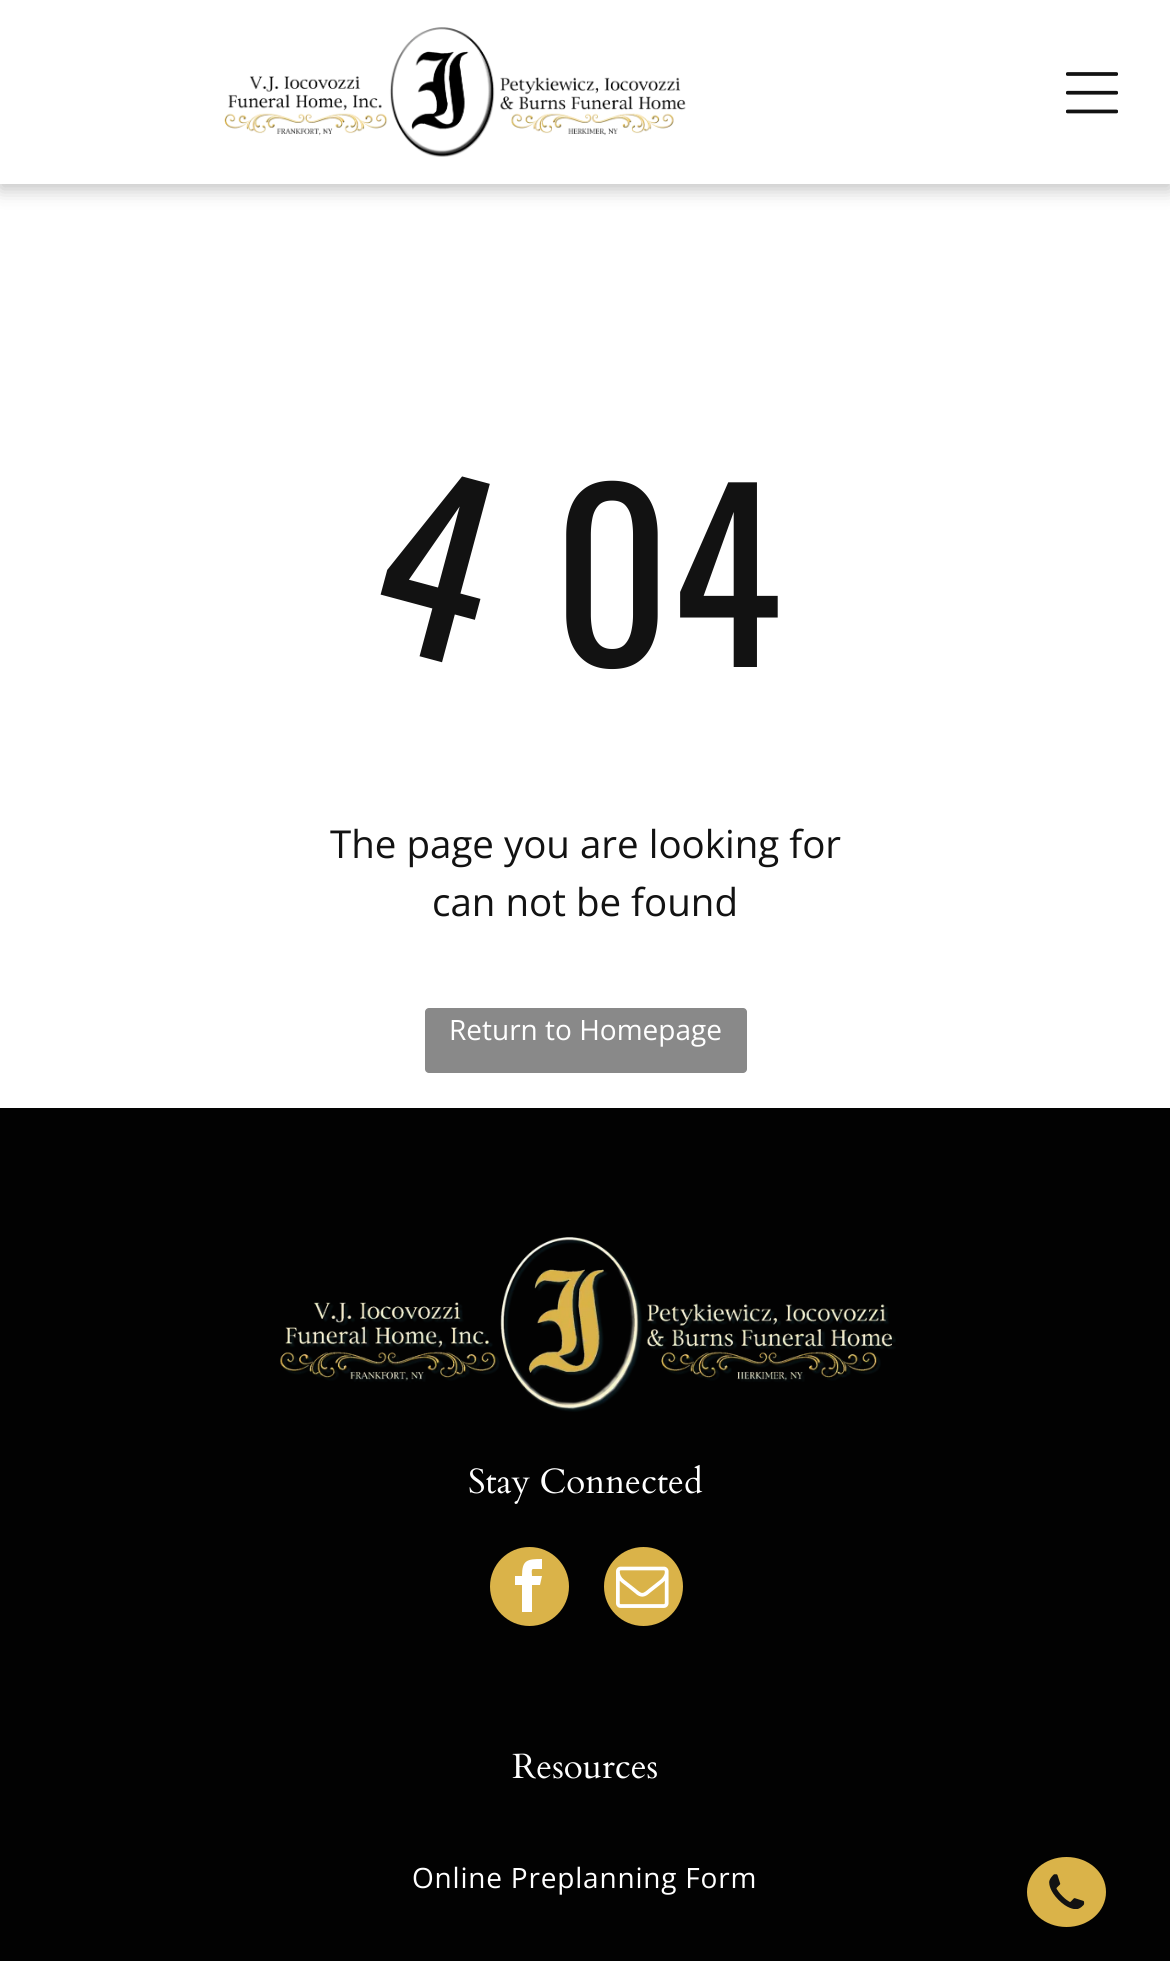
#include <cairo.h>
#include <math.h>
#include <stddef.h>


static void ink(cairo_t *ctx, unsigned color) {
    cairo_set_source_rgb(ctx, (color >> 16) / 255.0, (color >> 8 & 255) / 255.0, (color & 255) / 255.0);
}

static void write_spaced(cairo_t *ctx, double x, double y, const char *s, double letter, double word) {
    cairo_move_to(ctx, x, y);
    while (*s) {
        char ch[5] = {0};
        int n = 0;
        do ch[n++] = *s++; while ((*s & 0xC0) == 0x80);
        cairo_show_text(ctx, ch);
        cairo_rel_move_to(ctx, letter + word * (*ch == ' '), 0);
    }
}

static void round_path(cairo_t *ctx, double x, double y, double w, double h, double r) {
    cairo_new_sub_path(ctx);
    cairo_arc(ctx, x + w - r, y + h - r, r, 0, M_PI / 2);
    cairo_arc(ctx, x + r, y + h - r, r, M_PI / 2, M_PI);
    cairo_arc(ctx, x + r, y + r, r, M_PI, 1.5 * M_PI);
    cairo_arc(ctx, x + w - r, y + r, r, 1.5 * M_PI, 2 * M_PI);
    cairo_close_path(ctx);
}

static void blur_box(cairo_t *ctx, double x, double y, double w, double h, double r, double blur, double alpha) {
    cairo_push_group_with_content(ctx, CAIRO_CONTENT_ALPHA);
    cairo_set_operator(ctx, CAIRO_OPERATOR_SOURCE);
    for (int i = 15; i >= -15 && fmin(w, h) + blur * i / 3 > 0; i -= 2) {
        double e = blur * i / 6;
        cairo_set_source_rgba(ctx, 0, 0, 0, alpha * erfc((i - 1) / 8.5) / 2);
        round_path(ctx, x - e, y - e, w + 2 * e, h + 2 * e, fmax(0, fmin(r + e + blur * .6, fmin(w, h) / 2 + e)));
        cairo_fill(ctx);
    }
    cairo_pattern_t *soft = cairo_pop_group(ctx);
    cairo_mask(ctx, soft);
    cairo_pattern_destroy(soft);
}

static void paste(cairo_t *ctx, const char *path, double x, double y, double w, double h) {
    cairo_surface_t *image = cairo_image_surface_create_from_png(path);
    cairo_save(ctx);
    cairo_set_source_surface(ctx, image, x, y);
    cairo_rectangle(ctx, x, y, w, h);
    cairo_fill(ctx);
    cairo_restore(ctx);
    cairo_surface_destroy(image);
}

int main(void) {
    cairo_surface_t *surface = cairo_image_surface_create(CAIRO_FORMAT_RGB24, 1170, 1961);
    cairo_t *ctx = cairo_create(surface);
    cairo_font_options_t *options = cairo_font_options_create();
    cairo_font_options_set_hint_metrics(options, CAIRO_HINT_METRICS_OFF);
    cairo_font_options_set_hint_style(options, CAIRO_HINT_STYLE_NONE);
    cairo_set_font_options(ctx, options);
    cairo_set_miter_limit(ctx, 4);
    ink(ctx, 0xFFFFFF);
    cairo_paint(ctx);
    ink(ctx, 0x000000);
    blur_box(ctx, 0, 5, 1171, 184, 0, 9.5, 0.25);
    ink(ctx, 0xFFFFFF);
    cairo_rectangle(ctx, 0, 0, 1170, 184);
    cairo_fill(ctx);
    paste(ctx, "media/1.png", 224, 27, 462, 130);
    paste(ctx, "media/2.png", 1066, 72, 52, 42);
    cairo_select_font_face(ctx, "Oswald", CAIRO_FONT_SLANT_NORMAL, CAIRO_FONT_WEIGHT_NORMAL);
    cairo_set_font_size(ctx, 228);
    ink(ctx, 0x121212);
    cairo_save(ctx);
    cairo_translate(ctx, 359, 640);
    cairo_rotate(ctx, 15 * M_PI / 180);
    cairo_move_to(ctx, 0, 0);
    cairo_show_text(ctx, "4");
    cairo_restore(ctx);
    cairo_move_to(ctx, 553, 667);
    cairo_show_text(ctx, "04");
    cairo_select_font_face(ctx, "Open Sans", CAIRO_FONT_SLANT_NORMAL, CAIRO_FONT_WEIGHT_NORMAL);
    cairo_set_font_size(ctx, 38.5);
    cairo_move_to(ctx, 330, 858);
    cairo_show_text(ctx, "The page you are looking for");
    cairo_move_to(ctx, 432, 916);
    cairo_show_text(ctx, "can not be found");
    ink(ctx, 0x898989);
    round_path(ctx, 425, 1008, 322, 65, 4);
    cairo_fill(ctx);
    cairo_set_font_size(ctx, 28);
    ink(ctx, 0xFFFFFF);
    cairo_move_to(ctx, 449, 1040);
    cairo_show_text(ctx, "Return to Homepage");
    ink(ctx, 0x020202);
    cairo_rectangle(ctx, 0, 1108, 1170, 853);
    cairo_fill(ctx);
    paste(ctx, "media/3.png", 280, 1237, 616, 175);
    cairo_select_font_face(ctx, "Cardo", CAIRO_FONT_SLANT_NORMAL, CAIRO_FONT_WEIGHT_NORMAL);
    cairo_set_font_size(ctx, 35);
    ink(ctx, 0xFFFFFF);
    cairo_move_to(ctx, 468, 1493);
    cairo_show_text(ctx, "Stay Connected");
    ink(ctx, 0xDAB349);
    cairo_new_path(ctx);
    cairo_arc(ctx, 529.5, 1586.5, 39.5, 0, 2 * M_PI);
    cairo_fill(ctx);
    ink(ctx, 0xFFFFFF);
    cairo_new_path(ctx);
    cairo_move_to(ctx, 533, 1569);
    cairo_line_to(ctx, 542, 1569);
    cairo_line_to(ctx, 542, 1559);
    cairo_curve_to(ctx, 527, 1559, 522, 1560, 522, 1576);
    cairo_line_to(ctx, 515, 1576);
    cairo_line_to(ctx, 515, 1585);
    cairo_line_to(ctx, 522, 1585);
    cairo_line_to(ctx, 522, 1612);
    cairo_line_to(ctx, 532, 1612);
    cairo_line_to(ctx, 532, 1585);
    cairo_line_to(ctx, 540, 1585);
    cairo_line_to(ctx, 542, 1576);
    cairo_line_to(ctx, 532, 1576);
    cairo_curve_to(ctx, 532, 1574, 531, 1569, 533, 1569);
    cairo_close_path(ctx);
    cairo_fill(ctx);
    ink(ctx, 0xDAB349);
    cairo_arc(ctx, 643.5, 1586.5, 39.5, 0, 2 * M_PI);
    cairo_fill(ctx);
    paste(ctx, "media/4.png", 616, 1566, 53, 42);
    ink(ctx, 0xFFFFFF);
    cairo_move_to(ctx, 512, 1778);
    cairo_show_text(ctx, "Resources");
    cairo_select_font_face(ctx, "Open Sans", CAIRO_FONT_SLANT_NORMAL, CAIRO_FONT_WEIGHT_NORMAL);
    cairo_set_font_size(ctx, 28);
    write_spaced(ctx, 412, 1888, "Online Preplanning Form", 0.8, 0);
    ink(ctx, 0xDAB349);
    cairo_new_path(ctx);
    cairo_move_to(ctx, 1066.5, 1857);
    cairo_curve_to(ctx, 1088.5, 1857, 1106, 1872.5, 1106, 1892);
    cairo_curve_to(ctx, 1106, 1911.5, 1088.5, 1927, 1066.5, 1927);
    cairo_curve_to(ctx, 1044.5, 1927, 1027, 1911.5, 1027, 1892);
    cairo_curve_to(ctx, 1027, 1872.5, 1044.5, 1857, 1066.5, 1857);
    cairo_close_path(ctx);
    cairo_fill(ctx);
    paste(ctx, "media/5.png", 1049, 1874, 36, 35);
    cairo_surface_write_to_png(surface, "image.png");
    cairo_font_options_destroy(options);
    cairo_destroy(ctx);
    cairo_surface_destroy(surface);
    return 0;
}
